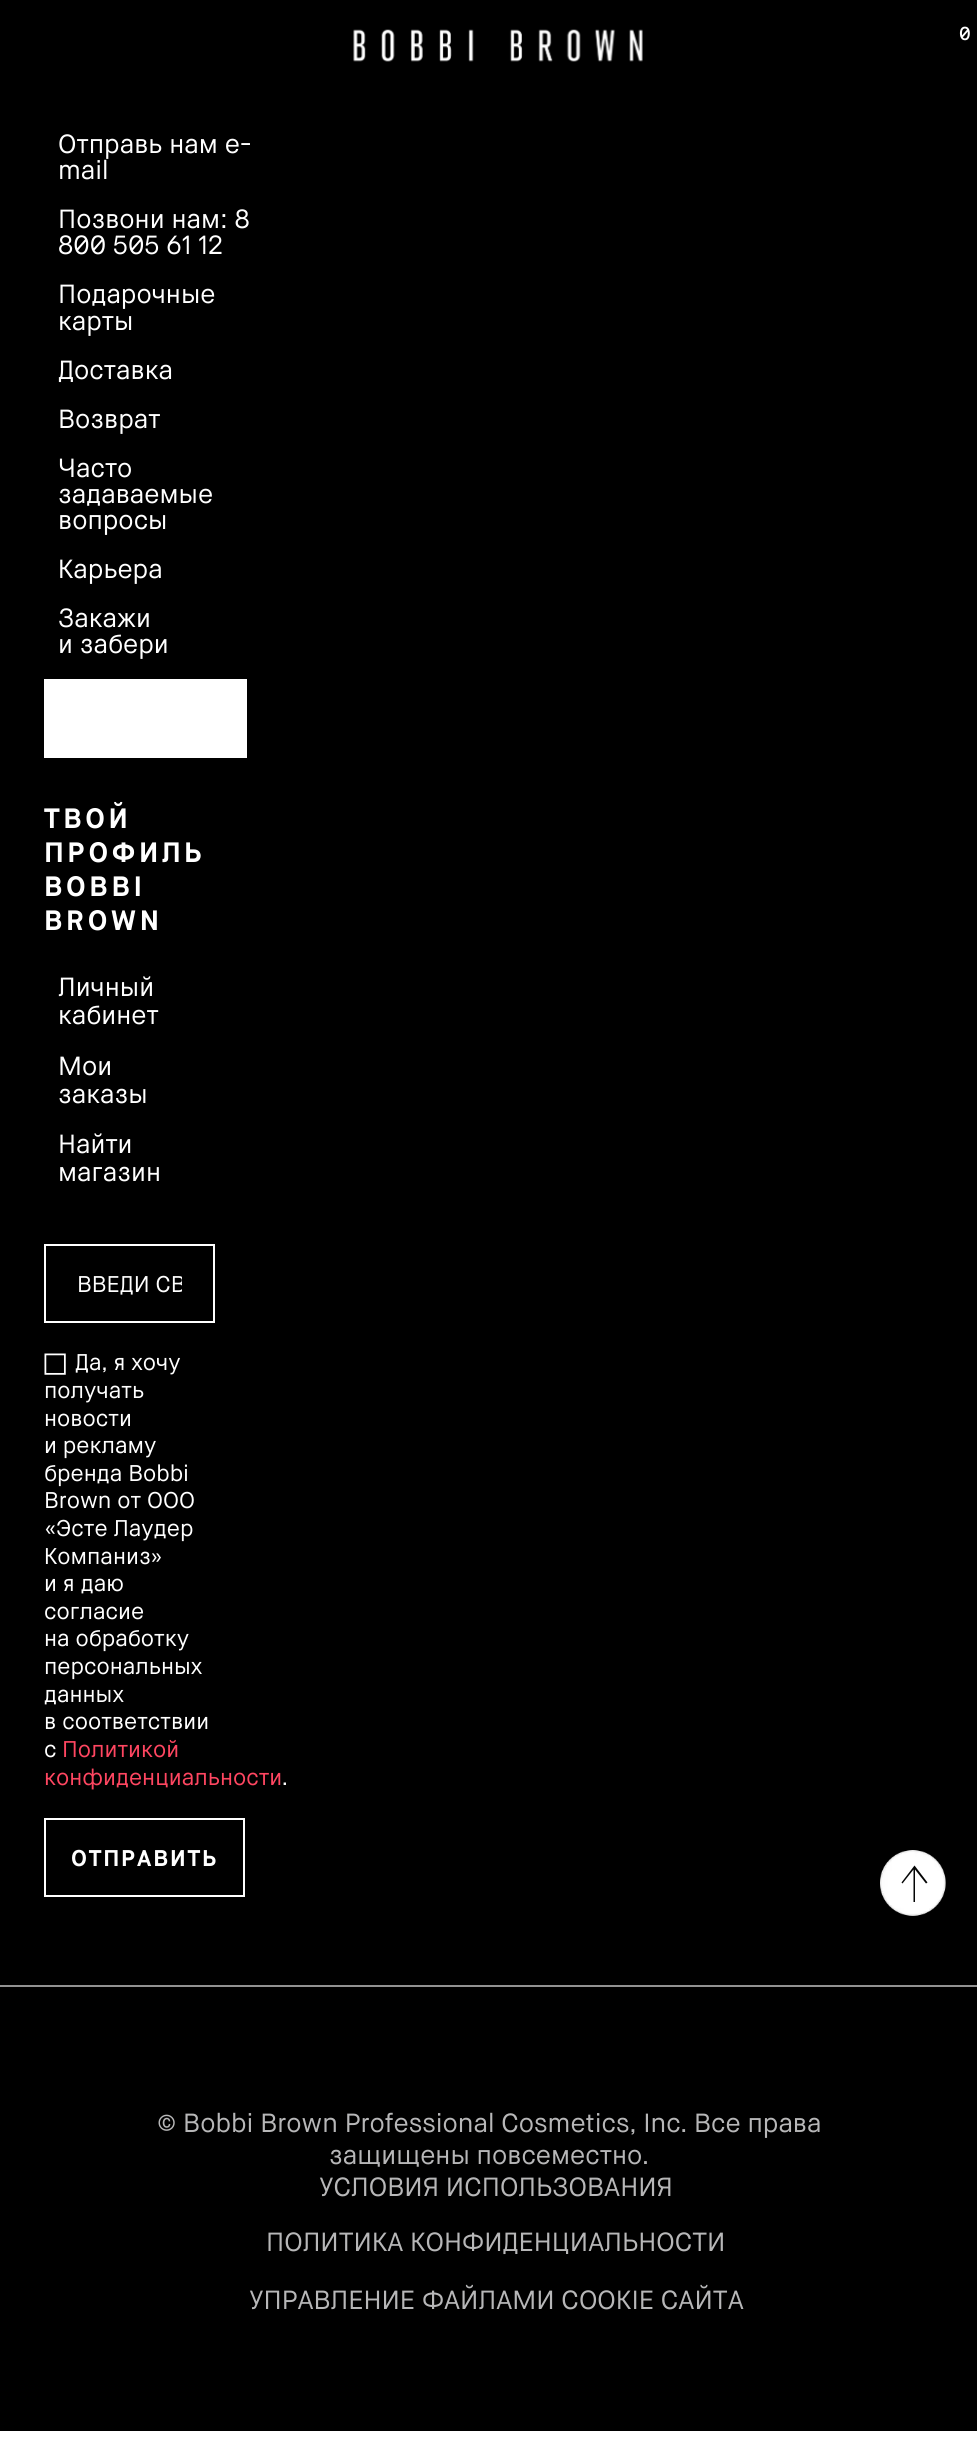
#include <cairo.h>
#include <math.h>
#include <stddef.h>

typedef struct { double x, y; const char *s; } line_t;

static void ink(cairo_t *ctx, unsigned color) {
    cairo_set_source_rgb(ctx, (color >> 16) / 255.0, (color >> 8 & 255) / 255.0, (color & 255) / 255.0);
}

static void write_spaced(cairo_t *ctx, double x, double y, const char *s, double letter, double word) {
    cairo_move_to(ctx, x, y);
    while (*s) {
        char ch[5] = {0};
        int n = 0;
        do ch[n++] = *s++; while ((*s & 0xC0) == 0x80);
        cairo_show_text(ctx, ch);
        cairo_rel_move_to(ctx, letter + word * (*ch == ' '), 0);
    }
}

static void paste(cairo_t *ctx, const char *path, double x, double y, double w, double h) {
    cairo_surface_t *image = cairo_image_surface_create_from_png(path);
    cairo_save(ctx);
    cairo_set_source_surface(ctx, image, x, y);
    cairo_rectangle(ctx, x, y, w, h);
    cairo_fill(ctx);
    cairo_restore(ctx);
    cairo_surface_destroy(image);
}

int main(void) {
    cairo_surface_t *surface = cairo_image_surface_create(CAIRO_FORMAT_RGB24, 977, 2463);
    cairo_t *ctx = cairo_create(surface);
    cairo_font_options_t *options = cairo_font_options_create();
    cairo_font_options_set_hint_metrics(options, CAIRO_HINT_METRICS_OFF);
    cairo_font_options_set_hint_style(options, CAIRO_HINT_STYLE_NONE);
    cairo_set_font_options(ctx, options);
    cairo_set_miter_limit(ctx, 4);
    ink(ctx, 0xFFFFFF);
    cairo_paint(ctx);
    ink(ctx, 0x000000);
    cairo_rectangle(ctx, 0, 0, 977, 2431);
    cairo_fill(ctx);
    paste(ctx, "media/1.png", 353, 29, 290, 33);
    cairo_select_font_face(ctx, "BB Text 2", CAIRO_FONT_SLANT_NORMAL, CAIRO_FONT_WEIGHT_BOLD);
    cairo_set_font_size(ctx, 18);
    ink(ctx, 0xFFFFFF);
    write_spaced(ctx, 959, 40, "0", 3.5, 0);
    cairo_select_font_face(ctx, "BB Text", CAIRO_FONT_SLANT_NORMAL, CAIRO_FONT_WEIGHT_NORMAL);
    cairo_set_font_size(ctx, 26.25);
    {
        static const line_t items[] = {
            {58, 153, "Отправь нам e-"},
            {58, 179, "mail"},
            {58, 228, "Позвони нам: 8"},
            {58, 254, "800 505 61 12"},
            {58, 303, "Подарочные"},
            {58, 330, "карты"},
            {58, 379, "Доставка"},
            {58, 428, "Возврат"},
            {58, 477, "Часто"},
            {58, 503, "задаваемые"},
            {58, 529, "вопросы"},
            {58, 578, "Карьера"},
            {58, 627, "Закажи"},
            {58, 653, "и забери"},
        };
        for (size_t i = 0; i < sizeof items / sizeof *items; i++) {
            cairo_move_to(ctx, items[i].x, items[i].y);
            cairo_show_text(ctx, items[i].s);
        }
    }
    cairo_rectangle(ctx, 44, 679, 203, 79);
    cairo_fill(ctx);
    cairo_select_font_face(ctx, "BB Text", CAIRO_FONT_SLANT_NORMAL, CAIRO_FONT_WEIGHT_BOLD);
    cairo_set_font_size(ctx, 28);
    {
        static const line_t items[] = {
            {44, 828, "ТВОЙ"},
            {44, 862, "ПРОФИЛЬ"},
            {44, 896, "BOBBI"},
            {44, 930, "BROWN"},
        };
        for (size_t i = 0; i < sizeof items / sizeof *items; i++) {
            write_spaced(ctx, items[i].x, items[i].y, items[i].s, 3.5, 0);
        }
    }
    cairo_select_font_face(ctx, "BB Text", CAIRO_FONT_SLANT_NORMAL, CAIRO_FONT_WEIGHT_NORMAL);
    cairo_set_font_size(ctx, 26.25);
    {
        static const line_t items[] = {
            {58, 996, "Личный"},
            {58, 1024, "кабинет"},
            {58, 1075, "Мои"},
            {58, 1103, "заказы"},
            {58, 1153, "Найти"},
            {58, 1181, "магазин"},
        };
        for (size_t i = 0; i < sizeof items / sizeof *items; i++) {
            cairo_move_to(ctx, items[i].x, items[i].y);
            cairo_show_text(ctx, items[i].s);
        }
    }
    cairo_rectangle(ctx, 45, 1245, 169, 77);
    cairo_stroke(ctx);
    cairo_save(ctx);
    cairo_rectangle(ctx, 77, 1271, 105, 28);
    cairo_clip(ctx);
    cairo_set_font_size(ctx, 22.75);
    cairo_move_to(ctx, 77, 1292);
    cairo_show_text(ctx, "ВВЕДИ СВ");
    cairo_restore(ctx);
    paste(ctx, "media/2.png", 44, 1353, 22, 22);
    cairo_set_font_size(ctx, 22.75);
    {
        static const line_t items[] = {
            {75, 1370, "Да, я хочу"},
            {44, 1398, "получать"},
            {44, 1426, "новости"},
            {44, 1453, "и рекламу"},
            {44, 1481, "бренда Bobbi"},
            {44, 1508, "Brown от ООО"},
            {44, 1536, "«Эсте Лаудер"},
            {44, 1564, "Компаниз»"},
            {44, 1591, "и я даю"},
            {44, 1619, "согласие"},
            {44, 1646, "на обработку"},
            {44, 1674, "персональных"},
            {44, 1702, "данных"},
            {44, 1729, "в соответствии"},
            {44, 1757, "с"},
        };
        for (size_t i = 0; i < sizeof items / sizeof *items; i++) {
            cairo_move_to(ctx, items[i].x, items[i].y);
            cairo_show_text(ctx, items[i].s);
        }
    }
    ink(ctx, 0xFF4661);
    cairo_move_to(ctx, 62, 1757);
    cairo_show_text(ctx, "Политикой");
    cairo_move_to(ctx, 44, 1785);
    cairo_show_text(ctx, "конфиденциальности");
    ink(ctx, 0xFFFFFF);
    cairo_move_to(ctx, 282, 1785);
    cairo_show_text(ctx, ".");
    cairo_rectangle(ctx, 45, 1819, 199, 77);
    cairo_stroke(ctx);
    cairo_select_font_face(ctx, "BB Text", CAIRO_FONT_SLANT_NORMAL, CAIRO_FONT_WEIGHT_BOLD);
    write_spaced(ctx, 71, 1866, "ОТПРАВИТЬ", 1.75, 0);
    paste(ctx, "media/3.png", 880, 1850, 66, 66);
    ink(ctx, 0x040505);
    cairo_set_fill_rule(ctx, CAIRO_FILL_RULE_EVEN_ODD);
    cairo_new_path(ctx);
    cairo_move_to(ctx, 901.5, 1882.5);
    cairo_line_to(ctx, 902.5, 1883.5);
    cairo_line_to(ctx, 913.5, 1869.5);
    cairo_line_to(ctx, 913.5, 1902);
    cairo_line_to(ctx, 915, 1902);
    cairo_line_to(ctx, 915, 1869.5);
    cairo_line_to(ctx, 926, 1883.5);
    cairo_line_to(ctx, 927.5, 1882.5);
    cairo_line_to(ctx, 914.5, 1865.5);
    cairo_close_path(ctx);
    cairo_fill(ctx);
    ink(ctx, 0x929292);
    cairo_rectangle(ctx, 0, 1985, 977, 2);
    cairo_fill(ctx);
    cairo_select_font_face(ctx, "BB Text", CAIRO_FONT_SLANT_NORMAL, CAIRO_FONT_WEIGHT_NORMAL);
    cairo_set_font_size(ctx, 26.25);
    ink(ctx, 0xB7B7B8);
    {
        static const line_t items[] = {
            {157, 2132, "© Bobbi Brown Professional Cosmetics, Inc. Все права"},
            {329, 2164, "защищены повсеместно."},
            {319, 2196, "УСЛОВИЯ ИСПОЛЬЗОВАНИЯ"},
            {266, 2251, "ПОЛИТИКА КОНФИДЕНЦИАЛЬНОСТИ"},
            {249, 2309, "УПРАВЛЕНИЕ ФАЙЛАМИ COOKIE САЙТА"},
        };
        for (size_t i = 0; i < sizeof items / sizeof *items; i++) {
            cairo_move_to(ctx, items[i].x, items[i].y);
            cairo_show_text(ctx, items[i].s);
        }
    }
    cairo_surface_write_to_png(surface, "image.png");
    cairo_font_options_destroy(options);
    cairo_destroy(ctx);
    cairo_surface_destroy(surface);
    return 0;
}
